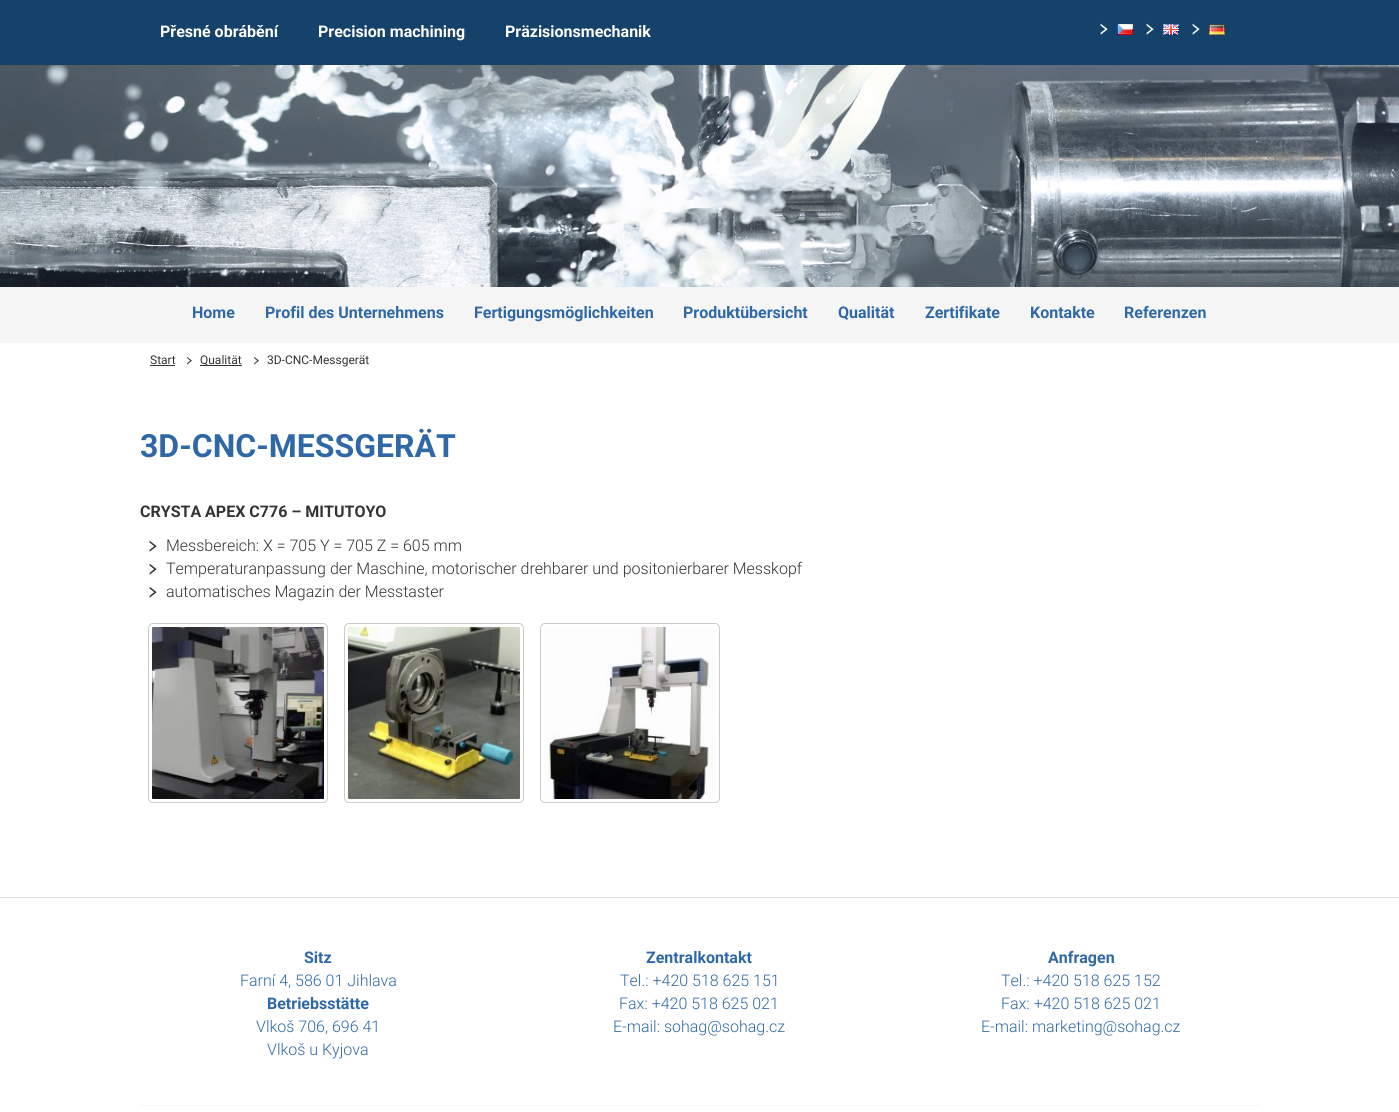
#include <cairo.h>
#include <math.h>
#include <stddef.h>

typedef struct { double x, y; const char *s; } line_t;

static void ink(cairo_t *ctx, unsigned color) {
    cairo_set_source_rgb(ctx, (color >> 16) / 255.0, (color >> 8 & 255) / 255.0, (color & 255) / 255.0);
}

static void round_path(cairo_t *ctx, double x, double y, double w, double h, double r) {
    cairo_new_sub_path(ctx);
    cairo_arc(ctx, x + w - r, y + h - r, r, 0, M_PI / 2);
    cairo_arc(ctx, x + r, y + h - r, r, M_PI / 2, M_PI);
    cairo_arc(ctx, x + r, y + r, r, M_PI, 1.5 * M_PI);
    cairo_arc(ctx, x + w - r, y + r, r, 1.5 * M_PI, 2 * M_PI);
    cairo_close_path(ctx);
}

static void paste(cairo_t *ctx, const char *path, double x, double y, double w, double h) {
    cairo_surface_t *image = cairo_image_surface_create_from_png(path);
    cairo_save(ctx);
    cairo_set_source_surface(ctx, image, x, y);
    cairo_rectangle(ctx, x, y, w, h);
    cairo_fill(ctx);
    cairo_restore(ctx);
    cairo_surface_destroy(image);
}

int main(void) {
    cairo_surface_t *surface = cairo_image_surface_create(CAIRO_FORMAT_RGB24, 1399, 1112);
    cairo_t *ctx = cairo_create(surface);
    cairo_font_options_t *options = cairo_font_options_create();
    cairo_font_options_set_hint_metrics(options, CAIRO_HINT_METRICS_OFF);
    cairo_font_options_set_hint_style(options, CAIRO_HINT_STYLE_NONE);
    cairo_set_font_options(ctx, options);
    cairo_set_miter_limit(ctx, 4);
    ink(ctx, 0xFFFFFF);
    cairo_paint(ctx);
    ink(ctx, 0x15426B);
    cairo_rectangle(ctx, 0, 0, 1399, 65);
    cairo_fill(ctx);
    cairo_select_font_face(ctx, "Roboto", CAIRO_FONT_SLANT_NORMAL, CAIRO_FONT_WEIGHT_BOLD);
    cairo_set_font_size(ctx, 16);
    ink(ctx, 0xFFFFFF);
    {
        static const line_t items[] = {
            {160, 37, "Přesné obrábění"},
            {318, 37, "Precision machining"},
            {505, 37, "Präzisionsmechanik"},
        };
        for (size_t i = 0; i < sizeof items / sizeof *items; i++) {
            cairo_move_to(ctx, items[i].x, items[i].y);
            cairo_show_text(ctx, items[i].s);
        }
    }
    paste(ctx, "media/1.png", 1100, 23, 8, 12);
    paste(ctx, "media/2.png", 1117, 24, 16, 11);
    paste(ctx, "media/1.png", 1146, 23, 8, 12);
    paste(ctx, "media/3.png", 1163, 24, 16, 11);
    paste(ctx, "media/1.png", 1192, 23, 8, 12);
    paste(ctx, "media/4.png", 1209, 24, 16, 11);
    paste(ctx, "media/5.png", 0, 65, 1399, 222);
    ink(ctx, 0xF5F5F5);
    cairo_rectangle(ctx, 0, 287, 1399, 56);
    cairo_fill(ctx);
    ink(ctx, 0x2F68A6);
    {
        static const line_t items[] = {
            {192, 318, "Home"},
            {265, 318, "Profil des Unternehmens"},
            {474, 318, "Fertigungsmöglichkeiten"},
            {683, 318, "Produktübersicht"},
            {838, 318, "Qualität"},
            {925, 318, "Zertifikate"},
            {1030, 318, "Kontakte"},
            {1124, 318, "Referenzen"},
        };
        for (size_t i = 0; i < sizeof items / sizeof *items; i++) {
            cairo_move_to(ctx, items[i].x, items[i].y);
            cairo_show_text(ctx, items[i].s);
        }
    }
    cairo_select_font_face(ctx, "Roboto", CAIRO_FONT_SLANT_NORMAL, CAIRO_FONT_WEIGHT_NORMAL);
    cairo_set_font_size(ctx, 12);
    ink(ctx, 0x333333);
    cairo_move_to(ctx, 150, 364);
    cairo_show_text(ctx, "Start");
    cairo_rectangle(ctx, 150, 365, 25, 1);
    cairo_fill(ctx);
    paste(ctx, "media/6.png", 187, 357, 5, 8);
    cairo_rectangle(ctx, 200, 365, 42, 1);
    cairo_fill(ctx);
    cairo_move_to(ctx, 200, 364);
    cairo_show_text(ctx, "Qualität");
    paste(ctx, "media/6.png", 254, 357, 5, 8);
    cairo_move_to(ctx, 267, 364);
    cairo_show_text(ctx, "3D-CNC-Messgerät");
    cairo_select_font_face(ctx, "Roboto", CAIRO_FONT_SLANT_NORMAL, CAIRO_FONT_WEIGHT_BOLD);
    cairo_set_font_size(ctx, 32);
    ink(ctx, 0x2F68A6);
    cairo_move_to(ctx, 140, 457);
    cairo_show_text(ctx, "3D-CNC-MESSGERÄT");
    cairo_set_font_size(ctx, 16);
    ink(ctx, 0x333333);
    cairo_move_to(ctx, 140, 517);
    cairo_show_text(ctx, "CRYSTA APEX C776 – MITUTOYO");
    paste(ctx, "media/7.png", 149, 540, 8, 12);
    cairo_select_font_face(ctx, "Roboto Light", CAIRO_FONT_SLANT_NORMAL, CAIRO_FONT_WEIGHT_NORMAL);
    cairo_move_to(ctx, 166, 551);
    cairo_show_text(ctx, "Messbereich: X = 705 Y = 705 Z = 605 mm");
    paste(ctx, "media/7.png", 149, 563, 8, 12);
    cairo_move_to(ctx, 166, 574);
    cairo_show_text(ctx, "Temperaturanpassung der Maschine, motorischer drehbarer und positonierbarer Messkopf");
    paste(ctx, "media/7.png", 149, 586, 8, 12);
    cairo_move_to(ctx, 166, 597);
    cairo_show_text(ctx, "automatisches Magazin der Messtaster");
    round_path(ctx, 148.5, 623.5, 179, 179, 4.5);
    ink(ctx, 0xCCCCCC);
    cairo_set_line_width(ctx, 1);
    cairo_stroke(ctx);
    paste(ctx, "media/8.png", 152, 627, 172, 172);
    round_path(ctx, 344.5, 623.5, 179, 179, 4.5);
    cairo_stroke(ctx);
    paste(ctx, "media/9.png", 348, 627, 172, 172);
    round_path(ctx, 540.5, 623.5, 179, 179, 4.5);
    cairo_stroke(ctx);
    paste(ctx, "media/10.png", 544, 627, 169, 172);
    ink(ctx, 0xDDDDDD);
    cairo_rectangle(ctx, 0, 897, 1399, 1);
    cairo_fill(ctx);
    ink(ctx, 0xF7F7F7);
    cairo_rectangle(ctx, 140, 1105, 1120, 1);
    cairo_fill(ctx);
    cairo_select_font_face(ctx, "Roboto", CAIRO_FONT_SLANT_NORMAL, CAIRO_FONT_WEIGHT_BOLD);
    ink(ctx, 0x2F68A6);
    cairo_move_to(ctx, 304, 963);
    cairo_show_text(ctx, "Sitz");
    cairo_select_font_face(ctx, "Roboto Light", CAIRO_FONT_SLANT_NORMAL, CAIRO_FONT_WEIGHT_NORMAL);
    cairo_move_to(ctx, 240, 986);
    cairo_show_text(ctx, "Farní 4, 586 01 Jihlava");
    cairo_select_font_face(ctx, "Roboto", CAIRO_FONT_SLANT_NORMAL, CAIRO_FONT_WEIGHT_BOLD);
    cairo_move_to(ctx, 267, 1009);
    cairo_show_text(ctx, "Betriebsstätte");
    cairo_select_font_face(ctx, "Roboto Light", CAIRO_FONT_SLANT_NORMAL, CAIRO_FONT_WEIGHT_NORMAL);
    cairo_move_to(ctx, 256, 1032);
    cairo_show_text(ctx, "Vlkoš 706, 696 41");
    cairo_move_to(ctx, 267, 1055);
    cairo_show_text(ctx, "Vlkoš u Kyjova");
    cairo_select_font_face(ctx, "Roboto", CAIRO_FONT_SLANT_NORMAL, CAIRO_FONT_WEIGHT_BOLD);
    cairo_move_to(ctx, 646, 963);
    cairo_show_text(ctx, "Zentralkontakt");
    cairo_select_font_face(ctx, "Roboto Light", CAIRO_FONT_SLANT_NORMAL, CAIRO_FONT_WEIGHT_NORMAL);
    {
        static const line_t items[] = {
            {620, 986, "Tel.: +420 518 625 151"},
            {619, 1009, "Fax: +420 518 625 021"},
            {613, 1032, "E-mail: sohag@sohag.cz"},
        };
        for (size_t i = 0; i < sizeof items / sizeof *items; i++) {
            cairo_move_to(ctx, items[i].x, items[i].y);
            cairo_show_text(ctx, items[i].s);
        }
    }
    cairo_select_font_face(ctx, "Roboto", CAIRO_FONT_SLANT_NORMAL, CAIRO_FONT_WEIGHT_BOLD);
    cairo_move_to(ctx, 1048, 963);
    cairo_show_text(ctx, "Anfragen");
    cairo_select_font_face(ctx, "Roboto Light", CAIRO_FONT_SLANT_NORMAL, CAIRO_FONT_WEIGHT_NORMAL);
    {
        static const line_t items[] = {
            {1001, 986, "Tel.: +420 518 625 152"},
            {1001, 1009, "Fax: +420 518 625 021"},
            {981, 1032, "E-mail: marketing@sohag.cz"},
        };
        for (size_t i = 0; i < sizeof items / sizeof *items; i++) {
            cairo_move_to(ctx, items[i].x, items[i].y);
            cairo_show_text(ctx, items[i].s);
        }
    }
    cairo_surface_write_to_png(surface, "image.png");
    cairo_font_options_destroy(options);
    cairo_destroy(ctx);
    cairo_surface_destroy(surface);
    return 0;
}
